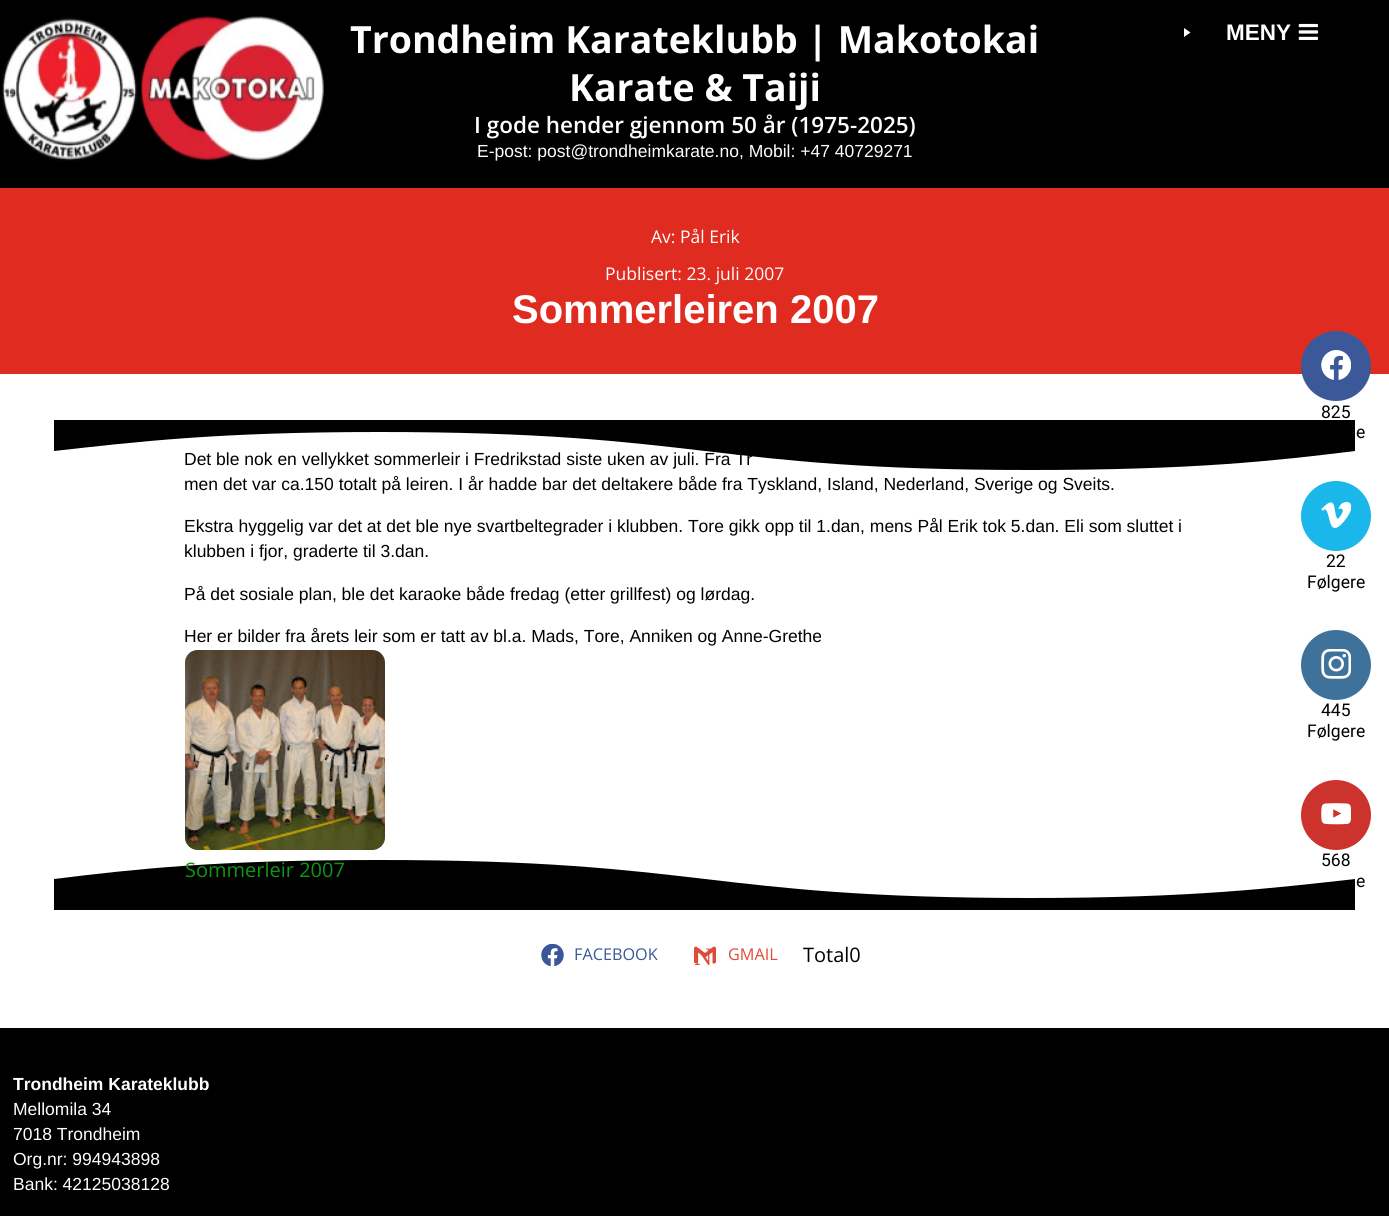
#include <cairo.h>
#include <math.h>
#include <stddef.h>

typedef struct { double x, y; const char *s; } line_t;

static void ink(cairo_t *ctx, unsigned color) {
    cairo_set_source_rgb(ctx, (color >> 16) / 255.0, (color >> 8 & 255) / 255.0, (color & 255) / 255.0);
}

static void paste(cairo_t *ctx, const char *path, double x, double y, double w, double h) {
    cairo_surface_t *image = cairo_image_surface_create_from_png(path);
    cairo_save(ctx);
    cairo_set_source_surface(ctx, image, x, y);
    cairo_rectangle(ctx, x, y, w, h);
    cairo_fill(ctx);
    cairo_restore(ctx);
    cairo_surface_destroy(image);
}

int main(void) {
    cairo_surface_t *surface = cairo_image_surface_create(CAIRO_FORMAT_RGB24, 1389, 1216);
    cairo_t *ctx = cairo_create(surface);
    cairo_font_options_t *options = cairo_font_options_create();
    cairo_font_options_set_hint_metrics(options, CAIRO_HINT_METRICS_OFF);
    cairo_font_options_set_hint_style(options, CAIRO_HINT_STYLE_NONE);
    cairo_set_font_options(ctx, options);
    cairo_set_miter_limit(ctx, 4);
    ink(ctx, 0x000000);
    cairo_paint(ctx);
    paste(ctx, "media/1.png", 1, 16, 323, 146);
    cairo_select_font_face(ctx, "Open Sans", CAIRO_FONT_SLANT_NORMAL, CAIRO_FONT_WEIGHT_BOLD);
    cairo_set_font_size(ctx, 37.5);
    ink(ctx, 0xFFFFFF);
    cairo_move_to(ctx, 350, 53);
    cairo_show_text(ctx, "Trondheim Karateklubb | Makotokai");
    cairo_move_to(ctx, 569, 101);
    cairo_show_text(ctx, "Karate & Taiji");
    cairo_select_font_face(ctx, "Open Sans SemiBold", CAIRO_FONT_SLANT_NORMAL, CAIRO_FONT_WEIGHT_NORMAL);
    cairo_set_font_size(ctx, 22.5);
    cairo_move_to(ctx, 474, 133);
    cairo_show_text(ctx, "I gode hender gjennom 50 år (1975-2025)");
    cairo_select_font_face(ctx, "Liberation Sans", CAIRO_FONT_SLANT_NORMAL, CAIRO_FONT_WEIGHT_NORMAL);
    cairo_set_font_size(ctx, 17.5);
    cairo_move_to(ctx, 477, 157);
    cairo_show_text(ctx, "E-post: post@trondheimkarate.no, Mobil: +47 40729271");
    cairo_new_path(ctx);
    cairo_move_to(ctx, 1184, 28);
    cairo_line_to(ctx, 1190.5, 32.5);
    cairo_line_to(ctx, 1184, 37);
    cairo_close_path(ctx);
    cairo_fill(ctx);
    cairo_select_font_face(ctx, "Liberation Sans", CAIRO_FONT_SLANT_NORMAL, CAIRO_FONT_WEIGHT_BOLD);
    cairo_set_font_size(ctx, 22.5);
    cairo_move_to(ctx, 1226, 40);
    cairo_show_text(ctx, "MENY");
    paste(ctx, "media/2.png", 1298, 23, 21, 17);
    cairo_rectangle(ctx, 0, 374, 1389, 654);
    cairo_fill(ctx);
    ink(ctx, 0xE02B20);
    cairo_rectangle(ctx, 0, 188, 1389, 186);
    cairo_fill(ctx);
    cairo_select_font_face(ctx, "Open Sans", CAIRO_FONT_SLANT_NORMAL, CAIRO_FONT_WEIGHT_NORMAL);
    cairo_set_font_size(ctx, 17.5);
    ink(ctx, 0xFFFFFF);
    cairo_move_to(ctx, 651, 243);
    cairo_show_text(ctx, "Av: Pål Erik");
    cairo_move_to(ctx, 605, 280);
    cairo_show_text(ctx, "Publisert: 23. juli 2007");
    cairo_select_font_face(ctx, "Liberation Sans", CAIRO_FONT_SLANT_NORMAL, CAIRO_FONT_WEIGHT_BOLD);
    cairo_set_font_size(ctx, 40);
    cairo_move_to(ctx, 512, 323);
    cairo_show_text(ctx, "Sommerleiren 2007");
    ink(ctx, 0x000000);
    cairo_new_path(ctx);
    cairo_move_to(ctx, 379, 432);
    cairo_curve_to(ctx, 216, 432, 135, 442, 54, 451);
    cairo_line_to(ctx, 54, 420);
    cairo_line_to(ctx, 1355, 420);
    cairo_line_to(ctx, 1355, 451);
    cairo_curve_to(ctx, 1274, 461, 1193, 470, 1030, 470);
    cairo_curve_to(ctx, 705, 470, 705, 432, 379, 432);
    cairo_close_path(ctx);
    cairo_fill(ctx);
    cairo_select_font_face(ctx, "Liberation Sans", CAIRO_FONT_SLANT_NORMAL, CAIRO_FONT_WEIGHT_NORMAL);
    cairo_set_font_size(ctx, 17.5);
    {
        static const line_t items[] = {
            {184, 465, "Det ble nok en vellykket sommerleir i Fredrikstad siste uken av juli. Fra Tr"},
            {184, 490, "men det var ca.150 totalt på leiren. I år hadde bar det deltakere både fra Tyskland, Island, Nederland, Sverige og Sveits."},
            {184, 532, "Ekstra hyggelig var det at det ble nye svartbeltegrader i klubben. Tore gikk opp til 1.dan, mens Pål Erik tok 5.dan. Eli som sluttet i"},
            {184, 557, "klubben i fjor, graderte til 3.dan."},
            {184, 600, "På det sosiale plan, ble det karaoke både fredag (etter grillfest) og lørdag."},
            {184, 642, "Her er bilder fra årets leir som er tatt av bl.a. Mads, Tore, Anniken og Anne-Grethe"},
        };
        for (size_t i = 0; i < sizeof items / sizeof *items; i++) {
            cairo_move_to(ctx, items[i].x, items[i].y);
            cairo_show_text(ctx, items[i].s);
        }
    }
    paste(ctx, "media/3.png", 185, 650, 200, 200);
    cairo_new_path(ctx);
    cairo_move_to(ctx, 379, 860);
    cairo_curve_to(ctx, 705, 860, 705, 898, 1030, 898);
    cairo_curve_to(ctx, 1193, 898, 1274, 888, 1355, 879);
    cairo_line_to(ctx, 1355, 910);
    cairo_line_to(ctx, 54, 910);
    cairo_line_to(ctx, 54, 879);
    cairo_curve_to(ctx, 135, 869, 216, 860, 379, 860);
    cairo_close_path(ctx);
    cairo_fill(ctx);
    cairo_select_font_face(ctx, "Open Sans", CAIRO_FONT_SLANT_NORMAL, CAIRO_FONT_WEIGHT_NORMAL);
    cairo_set_font_size(ctx, 20);
    ink(ctx, 0x0F9613);
    cairo_move_to(ctx, 185, 877);
    cairo_show_text(ctx, "Sommerleir 2007");
    paste(ctx, "media/4.png", 541, 944, 23, 22);
    cairo_set_font_size(ctx, 16.25);
    ink(ctx, 0x3A579A);
    cairo_move_to(ctx, 574, 960);
    cairo_show_text(ctx, "FACEBOOK");
    paste(ctx, "media/5.png", 694, 946, 22, 18);
    cairo_select_font_face(ctx, "Liberation Serif", CAIRO_FONT_SLANT_NORMAL, CAIRO_FONT_WEIGHT_NORMAL);
    cairo_set_font_size(ctx, 25);
    ink(ctx, 0xDD4B39);
    cairo_move_to(ctx, 694, 965);
    cairo_show_text(ctx, "N");
    cairo_select_font_face(ctx, "Open Sans", CAIRO_FONT_SLANT_NORMAL, CAIRO_FONT_WEIGHT_NORMAL);
    cairo_set_font_size(ctx, 16.25);
    cairo_move_to(ctx, 728, 960);
    cairo_show_text(ctx, "GMAIL");
    cairo_set_font_size(ctx, 20);
    ink(ctx, 0x000000);
    cairo_move_to(ctx, 803, 962);
    cairo_show_text(ctx, "Total0");
    cairo_select_font_face(ctx, "Liberation Sans", CAIRO_FONT_SLANT_NORMAL, CAIRO_FONT_WEIGHT_BOLD);
    cairo_set_font_size(ctx, 17.5);
    ink(ctx, 0xFFFFFF);
    cairo_move_to(ctx, 13, 1090);
    cairo_show_text(ctx, "Trondheim Karateklubb");
    cairo_select_font_face(ctx, "Liberation Sans", CAIRO_FONT_SLANT_NORMAL, CAIRO_FONT_WEIGHT_NORMAL);
    {
        static const line_t items[] = {
            {13, 1115, "Mellomila 34"},
            {13, 1140, "7018 Trondheim"},
            {13, 1165, "Org.nr: 994943898"},
            {13, 1190, "Bank: 42125038128"},
        };
        for (size_t i = 0; i < sizeof items / sizeof *items; i++) {
            cairo_move_to(ctx, items[i].x, items[i].y);
            cairo_show_text(ctx, items[i].s);
        }
    }
    ink(ctx, 0x3B5998);
    cairo_new_path(ctx);
    cairo_arc(ctx, 1336, 366, 35, 0, 2 * M_PI);
    cairo_fill(ctx);
    paste(ctx, "media/6.png", 1321, 350, 30, 30);
    cairo_select_font_face(ctx, "Roboto", CAIRO_FONT_SLANT_NORMAL, CAIRO_FONT_WEIGHT_NORMAL);
    ink(ctx, 0x000000);
    cairo_move_to(ctx, 1321, 418);
    cairo_show_text(ctx, "825");
    cairo_move_to(ctx, 1356, 438);
    cairo_show_text(ctx, "e");
    ink(ctx, 0x1AB7EA);
    cairo_new_path(ctx);
    cairo_arc(ctx, 1336, 516, 35, 0, 2 * M_PI);
    cairo_fill(ctx);
    paste(ctx, "media/7.png", 1321, 502, 30, 26);
    ink(ctx, 0x000000);
    cairo_move_to(ctx, 1326, 567);
    cairo_show_text(ctx, "22");
    cairo_move_to(ctx, 1307, 588);
    cairo_show_text(ctx, "Følgere");
    ink(ctx, 0x3F729B);
    cairo_new_path(ctx);
    cairo_arc(ctx, 1336, 665, 35, 0, 2 * M_PI);
    cairo_fill(ctx);
    paste(ctx, "media/8.png", 1321, 649, 30, 30);
    ink(ctx, 0x000000);
    cairo_move_to(ctx, 1321, 716);
    cairo_show_text(ctx, "445");
    cairo_move_to(ctx, 1307, 737);
    cairo_show_text(ctx, "Følgere");
    ink(ctx, 0xCD332D);
    cairo_new_path(ctx);
    cairo_arc(ctx, 1336, 815, 35, 0, 2 * M_PI);
    cairo_fill(ctx);
    paste(ctx, "media/9.png", 1321, 803, 30, 22);
    ink(ctx, 0x000000);
    cairo_move_to(ctx, 1321, 866);
    cairo_show_text(ctx, "568");
    cairo_move_to(ctx, 1356, 887);
    cairo_show_text(ctx, "e");
    cairo_surface_write_to_png(surface, "image.png");
    cairo_font_options_destroy(options);
    cairo_destroy(ctx);
    cairo_surface_destroy(surface);
    return 0;
}
